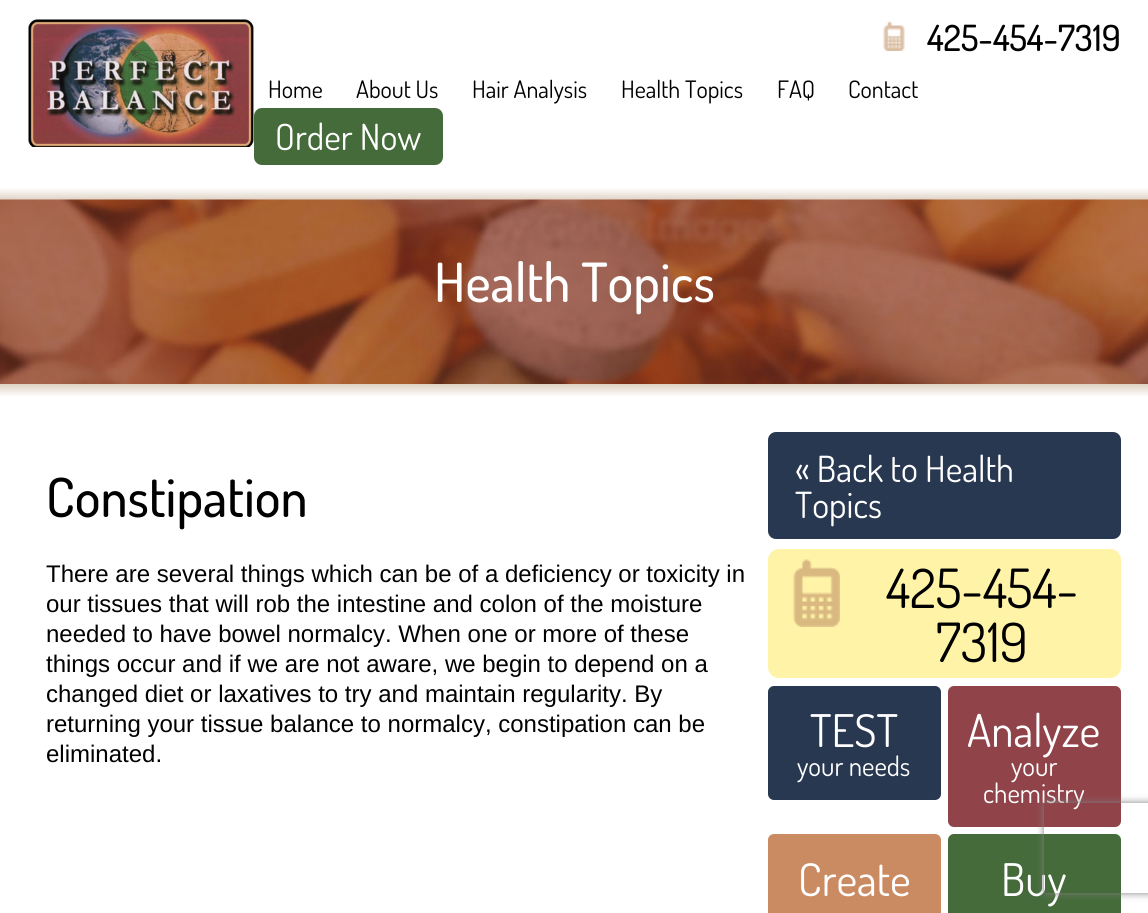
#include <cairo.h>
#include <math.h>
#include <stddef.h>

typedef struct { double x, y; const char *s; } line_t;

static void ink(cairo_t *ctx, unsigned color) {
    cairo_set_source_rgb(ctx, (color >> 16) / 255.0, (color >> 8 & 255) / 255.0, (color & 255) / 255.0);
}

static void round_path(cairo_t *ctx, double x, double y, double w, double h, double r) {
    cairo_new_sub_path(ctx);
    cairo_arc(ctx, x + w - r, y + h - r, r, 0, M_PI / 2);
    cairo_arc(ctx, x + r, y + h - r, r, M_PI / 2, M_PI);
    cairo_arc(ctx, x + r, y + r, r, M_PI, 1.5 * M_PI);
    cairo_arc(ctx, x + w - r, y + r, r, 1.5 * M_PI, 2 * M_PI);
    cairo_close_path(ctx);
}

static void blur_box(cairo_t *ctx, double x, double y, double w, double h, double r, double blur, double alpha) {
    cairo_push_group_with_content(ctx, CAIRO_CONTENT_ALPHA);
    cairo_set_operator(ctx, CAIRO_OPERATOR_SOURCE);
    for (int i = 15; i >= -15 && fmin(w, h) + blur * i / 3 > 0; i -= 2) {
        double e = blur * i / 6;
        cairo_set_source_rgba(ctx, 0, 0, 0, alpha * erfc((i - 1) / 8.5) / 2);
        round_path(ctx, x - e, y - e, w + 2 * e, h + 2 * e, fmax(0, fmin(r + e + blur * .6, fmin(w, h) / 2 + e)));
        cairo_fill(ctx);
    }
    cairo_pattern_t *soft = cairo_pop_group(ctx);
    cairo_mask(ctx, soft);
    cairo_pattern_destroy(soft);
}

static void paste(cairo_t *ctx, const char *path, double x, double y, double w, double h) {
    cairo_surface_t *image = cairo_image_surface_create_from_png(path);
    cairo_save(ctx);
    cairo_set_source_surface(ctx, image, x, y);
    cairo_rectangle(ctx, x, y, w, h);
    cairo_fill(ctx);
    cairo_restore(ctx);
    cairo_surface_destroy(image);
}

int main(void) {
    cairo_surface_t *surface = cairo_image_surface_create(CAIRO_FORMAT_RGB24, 1148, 913);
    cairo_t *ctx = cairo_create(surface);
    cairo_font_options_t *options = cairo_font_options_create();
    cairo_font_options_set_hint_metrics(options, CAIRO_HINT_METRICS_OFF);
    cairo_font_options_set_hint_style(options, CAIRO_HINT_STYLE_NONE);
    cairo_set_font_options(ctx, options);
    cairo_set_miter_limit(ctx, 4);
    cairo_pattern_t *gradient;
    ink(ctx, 0xFFFFFF);
    cairo_paint(ctx);
    gradient = cairo_pattern_create_linear(575, 200, 575, 0);
    cairo_pattern_add_color_stop_rgba(gradient, 0, 0.875, 0.824, 0.765, 1);
    cairo_pattern_add_color_stop_rgba(gradient, 0.06, 1, 1, 1, 1);
    cairo_set_source(ctx, gradient);
    cairo_pattern_destroy(gradient);
    cairo_rectangle(ctx, 0, 188, 1148, 12);
    cairo_fill(ctx);
    paste(ctx, "media/1.png", 28, 19, 226, 128);
    paste(ctx, "media/2.png", 883, 21, 22, 30);
    cairo_select_font_face(ctx, "Dosis Medium", CAIRO_FONT_SLANT_NORMAL, CAIRO_FONT_WEIGHT_NORMAL);
    cairo_set_font_size(ctx, 36);
    ink(ctx, 0x000000);
    cairo_move_to(ctx, 927, 51);
    cairo_show_text(ctx, "425-454-7319");
    cairo_select_font_face(ctx, "Dosis", CAIRO_FONT_SLANT_NORMAL, CAIRO_FONT_WEIGHT_NORMAL);
    cairo_set_font_size(ctx, 24);
    {
        static const line_t items[] = {
            {268, 98, "Home"},
            {356, 98, "About Us"},
            {472, 98, "Hair Analysis"},
            {621, 98, "Health Topics"},
            {777, 98, "FAQ"},
            {848, 98, "Contact"},
        };
        for (size_t i = 0; i < sizeof items / sizeof *items; i++) {
            cairo_move_to(ctx, items[i].x, items[i].y);
            cairo_show_text(ctx, items[i].s);
        }
    }
    ink(ctx, 0x446B39);
    round_path(ctx, 254, 108, 189, 57, 8);
    cairo_fill(ctx);
    cairo_set_font_size(ctx, 36);
    ink(ctx, 0xFFFFFF);
    cairo_move_to(ctx, 275, 150);
    cairo_show_text(ctx, "Order Now");
    paste(ctx, "media/3.png", 0, 199, 1148, 185);
    cairo_select_font_face(ctx, "Dosis Medium", CAIRO_FONT_SLANT_NORMAL, CAIRO_FONT_WEIGHT_NORMAL);
    cairo_set_font_size(ctx, 54);
    cairo_move_to(ctx, 434, 302);
    cairo_show_text(ctx, "Health Topics");
    gradient = cairo_pattern_create_linear(575, 384, 575, 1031);
    cairo_pattern_add_color_stop_rgba(gradient, 0, 0.875, 0.824, 0.765, 1);
    cairo_pattern_add_color_stop_rgba(gradient, 0.02, 1, 1, 1, 1);
    cairo_set_source(ctx, gradient);
    cairo_pattern_destroy(gradient);
    cairo_rectangle(ctx, 0, 384, 1148, 12);
    cairo_fill(ctx);
    ink(ctx, 0x000000);
    cairo_move_to(ctx, 46, 517);
    cairo_show_text(ctx, "Constipation");
    cairo_select_font_face(ctx, "Liberation Sans", CAIRO_FONT_SLANT_NORMAL, CAIRO_FONT_WEIGHT_NORMAL);
    cairo_set_font_size(ctx, 24);
    {
        static const line_t items[] = {
            {46, 582, "There are several things which can be of a deficiency or toxicity in"},
            {46, 612, "our tissues that will rob the intestine and colon of the moisture"},
            {46, 642, "needed to have bowel normalcy. When one or more of these"},
            {46, 672, "things occur and if we are not aware, we begin to depend on a"},
            {46, 702, "changed diet or laxatives to try and maintain regularity. By"},
            {46, 732, "returning your tissue balance to normalcy, constipation can be"},
            {46, 762, "eliminated."},
        };
        for (size_t i = 0; i < sizeof items / sizeof *items; i++) {
            cairo_move_to(ctx, items[i].x, items[i].y);
            cairo_show_text(ctx, items[i].s);
        }
    }
    ink(ctx, 0x283851);
    round_path(ctx, 768, 432, 353, 107, 8);
    cairo_fill(ctx);
    cairo_select_font_face(ctx, "Dosis", CAIRO_FONT_SLANT_NORMAL, CAIRO_FONT_WEIGHT_NORMAL);
    cairo_set_font_size(ctx, 36);
    ink(ctx, 0xFFFFFF);
    cairo_move_to(ctx, 795, 482);
    cairo_show_text(ctx, "« Back to Health");
    cairo_move_to(ctx, 795, 518);
    cairo_show_text(ctx, "Topics");
    ink(ctx, 0xFFF3A8);
    round_path(ctx, 768, 549, 353, 129, 11);
    cairo_fill(ctx);
    paste(ctx, "media/4.png", 793, 559, 47, 68);
    cairo_set_font_size(ctx, 54);
    ink(ctx, 0x000000);
    cairo_move_to(ctx, 886, 608);
    cairo_show_text(ctx, "425-454-");
    cairo_move_to(ctx, 936, 662);
    cairo_show_text(ctx, "7319");
    ink(ctx, 0x283851);
    round_path(ctx, 768, 686, 173, 114, 6);
    cairo_fill(ctx);
    cairo_set_font_size(ctx, 45);
    ink(ctx, 0xFFFFFF);
    cairo_move_to(ctx, 810, 747);
    cairo_show_text(ctx, "TEST");
    cairo_set_font_size(ctx, 27);
    cairo_move_to(ctx, 797, 776);
    cairo_show_text(ctx, "your needs");
    ink(ctx, 0x904349);
    round_path(ctx, 948, 686, 173, 141, 6);
    cairo_fill(ctx);
    cairo_set_font_size(ctx, 45);
    ink(ctx, 0xFFFFFF);
    cairo_move_to(ctx, 967, 747);
    cairo_show_text(ctx, "Analyze");
    cairo_set_font_size(ctx, 27);
    cairo_move_to(ctx, 1011, 776);
    cairo_show_text(ctx, "your");
    cairo_move_to(ctx, 983, 803);
    cairo_show_text(ctx, "chemistry");
    ink(ctx, 0xCA8B62);
    round_path(ctx, 768, 834, 173, 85, 6);
    cairo_fill(ctx);
    cairo_set_font_size(ctx, 45);
    ink(ctx, 0xFFFFFF);
    cairo_move_to(ctx, 798, 896);
    cairo_show_text(ctx, "Create");
    ink(ctx, 0x446B39);
    round_path(ctx, 948, 834, 173, 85, 6);
    cairo_fill(ctx);
    ink(ctx, 0xFFFFFF);
    cairo_move_to(ctx, 1001, 896);
    cairo_show_text(ctx, "Buy");
    cairo_save(ctx);
    cairo_set_fill_rule(ctx, CAIRO_FILL_RULE_EVEN_ODD);
    cairo_new_path(ctx);
    cairo_move_to(ctx, 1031, 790);
    cairo_line_to(ctx, 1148, 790);
    cairo_line_to(ctx, 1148, 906);
    cairo_line_to(ctx, 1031, 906);
    cairo_close_path(ctx);
    cairo_move_to(ctx, 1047, 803);
    cairo_line_to(ctx, 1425, 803);
    cairo_curve_to(ctx, 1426.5, 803, 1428, 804.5, 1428, 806);
    cairo_line_to(ctx, 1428, 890);
    cairo_curve_to(ctx, 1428, 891.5, 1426.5, 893, 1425, 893);
    cairo_line_to(ctx, 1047, 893);
    cairo_curve_to(ctx, 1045.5, 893, 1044, 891.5, 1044, 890);
    cairo_line_to(ctx, 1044, 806);
    cairo_curve_to(ctx, 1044, 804.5, 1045.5, 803, 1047, 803);
    cairo_close_path(ctx);
    cairo_clip(ctx);
    ink(ctx, 0x808080);
    blur_box(ctx, 1044, 803, 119, 90, 3, 4, 1);
    cairo_restore(ctx);
    cairo_surface_write_to_png(surface, "image.png");
    cairo_font_options_destroy(options);
    cairo_destroy(ctx);
    cairo_surface_destroy(surface);
    return 0;
}
